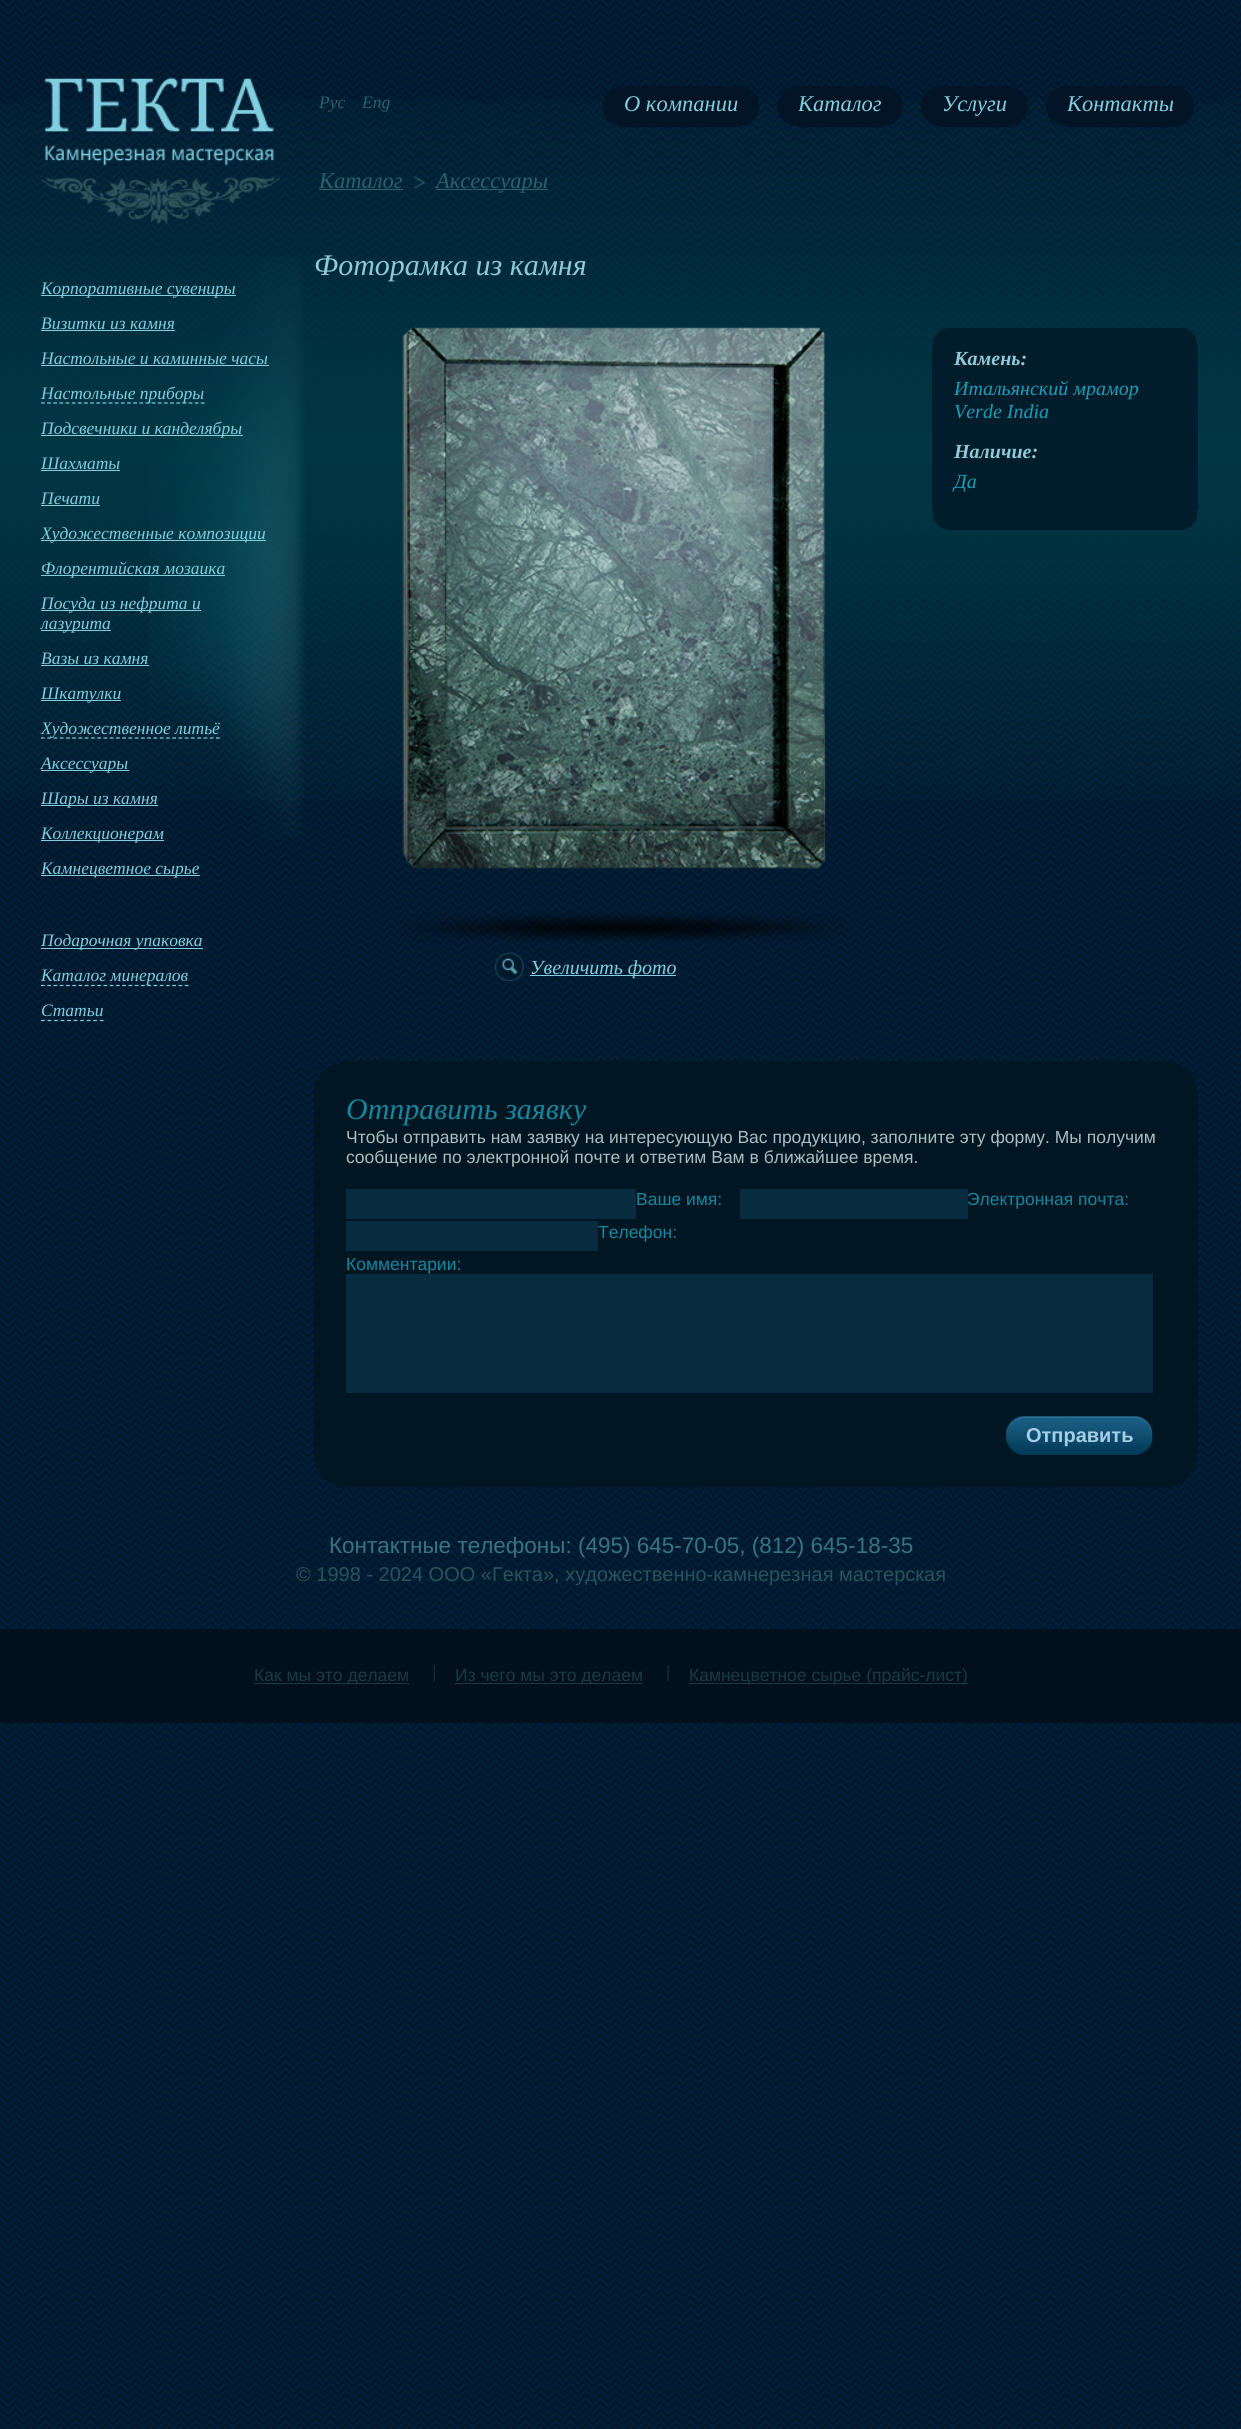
#include <cairo.h>
#include <math.h>
#include <stddef.h>


static void ink(cairo_t *ctx, unsigned color) {
    cairo_set_source_rgb(ctx, (color >> 16) / 255.0, (color >> 8 & 255) / 255.0, (color & 255) / 255.0);
}

static void paste(cairo_t *ctx, const char *path, double x, double y, double w, double h) {
    cairo_surface_t *image = cairo_image_surface_create_from_png(path);
    cairo_save(ctx);
    cairo_set_source_surface(ctx, image, x, y);
    cairo_rectangle(ctx, x, y, w, h);
    cairo_fill(ctx);
    cairo_restore(ctx);
    cairo_surface_destroy(image);
}

int main(void) {
    cairo_surface_t *surface = cairo_image_surface_create(CAIRO_FORMAT_RGB24, 1241, 2429);
    cairo_t *ctx = cairo_create(surface);
    cairo_font_options_t *options = cairo_font_options_create();
    cairo_font_options_set_hint_metrics(options, CAIRO_HINT_METRICS_OFF);
    cairo_font_options_set_hint_style(options, CAIRO_HINT_STYLE_NONE);
    cairo_set_font_options(ctx, options);
    cairo_set_miter_limit(ctx, 4);
    ink(ctx, 0xFFFFFF);
    cairo_paint(ctx);
    paste(ctx, "media/1.png", 0, 0, 1241, 2429);
    paste(ctx, "media/2.png", 0, 99, 1241, 701);
    paste(ctx, "media/3.png", 41, 77, 239, 148);
    cairo_select_font_face(ctx, "Liberation Serif", CAIRO_FONT_SLANT_ITALIC, CAIRO_FONT_WEIGHT_NORMAL);
    cairo_set_font_size(ctx, 17.5);
    ink(ctx, 0x2A616B);
    cairo_move_to(ctx, 319, 108);
    cairo_show_text(ctx, "Рус");
    cairo_move_to(ctx, 362, 108);
    cairo_show_text(ctx, "Eng");
    paste(ctx, "media/4.png", 602, 86, 21, 41);
    ink(ctx, 0x021425);
    cairo_rectangle(ctx, 623, 86, 116, 41);
    cairo_fill(ctx);
    cairo_set_font_size(ctx, 22.5);
    ink(ctx, 0x81CFDE);
    cairo_move_to(ctx, 624, 111);
    cairo_show_text(ctx, "О компании");
    paste(ctx, "media/5.png", 739, 86, 20, 40);
    ink(ctx, 0x021425);
    cairo_rectangle(ctx, 798, 86, 85, 41);
    cairo_fill(ctx);
    ink(ctx, 0x81CFDE);
    cairo_move_to(ctx, 798, 111);
    cairo_show_text(ctx, "Каталог");
    paste(ctx, "media/6.png", 777, 86, 22, 41);
    paste(ctx, "media/7.png", 883, 86, 20, 41);
    paste(ctx, "media/8.png", 921, 86, 21, 41);
    ink(ctx, 0x021425);
    cairo_rectangle(ctx, 942, 86, 66, 41);
    cairo_fill(ctx);
    ink(ctx, 0x81CFDE);
    cairo_move_to(ctx, 942, 111);
    cairo_show_text(ctx, "Услуги");
    paste(ctx, "media/9.png", 1008, 86, 20, 41);
    ink(ctx, 0x021425);
    cairo_rectangle(ctx, 1067, 86, 107, 41);
    cairo_fill(ctx);
    ink(ctx, 0x81CFDE);
    cairo_move_to(ctx, 1067, 111);
    cairo_show_text(ctx, "Контакты");
    paste(ctx, "media/10.png", 1046, 86, 22, 41);
    paste(ctx, "media/5.png", 1174, 86, 20, 40);
    ink(ctx, 0x2A616B);
    cairo_move_to(ctx, 319, 188);
    cairo_show_text(ctx, "Каталог");
    cairo_rectangle(ctx, 319, 189, 84, 1);
    cairo_fill(ctx);
    paste(ctx, "media/11.png", 413, 176, 12, 13);
    cairo_rectangle(ctx, 436, 189, 112, 1);
    cairo_fill(ctx);
    cairo_move_to(ctx, 436, 188);
    cairo_show_text(ctx, "Аксессуары");
    paste(ctx, "media/12.png", 149, 257, 156, 580);
    ink(ctx, 0x81CFDE);
    cairo_rectangle(ctx, 41, 295, 195, 1);
    cairo_fill(ctx);
    cairo_set_font_size(ctx, 17.5);
    cairo_move_to(ctx, 41, 294);
    cairo_show_text(ctx, "Корпоративные сувениры");
    cairo_move_to(ctx, 41, 329);
    cairo_show_text(ctx, "Визитки из камня");
    cairo_rectangle(ctx, 41, 330, 134, 1);
    cairo_fill(ctx);
    cairo_move_to(ctx, 41, 364);
    cairo_show_text(ctx, "Настольные и каминные часы");
    cairo_rectangle(ctx, 41, 365, 228, 1);
    cairo_fill(ctx);
    cairo_new_path(ctx);
    cairo_move_to(ctx, 41, 403);
    cairo_line_to(ctx, 205, 403);
    cairo_set_line_width(ctx, 1.2);
    cairo_set_dash(ctx, (double[]){3.75, 2.4}, 2, 0);
    cairo_stroke(ctx);
    cairo_move_to(ctx, 41, 399);
    cairo_show_text(ctx, "Настольные приборы");
    cairo_rectangle(ctx, 41, 435, 202, 1);
    cairo_fill(ctx);
    cairo_move_to(ctx, 41, 434);
    cairo_show_text(ctx, "Подсвечники и канделябры");
    cairo_move_to(ctx, 41, 469);
    cairo_show_text(ctx, "Шахматы");
    cairo_rectangle(ctx, 41, 470, 79, 1);
    cairo_fill(ctx);
    cairo_move_to(ctx, 41, 504);
    cairo_show_text(ctx, "Печати");
    cairo_rectangle(ctx, 41, 505, 59, 1);
    cairo_fill(ctx);
    cairo_rectangle(ctx, 41, 540, 225, 1);
    cairo_fill(ctx);
    cairo_move_to(ctx, 41, 539);
    cairo_show_text(ctx, "Художественные композиции");
    cairo_rectangle(ctx, 41, 575, 184, 1);
    cairo_fill(ctx);
    cairo_move_to(ctx, 41, 574);
    cairo_show_text(ctx, "Флорентийская мозаика");
    cairo_rectangle(ctx, 41, 610, 160, 1);
    cairo_fill(ctx);
    cairo_move_to(ctx, 41, 609);
    cairo_show_text(ctx, "Посуда из нефрита и");
    cairo_rectangle(ctx, 41, 630, 70, 1);
    cairo_fill(ctx);
    cairo_move_to(ctx, 41, 629);
    cairo_show_text(ctx, "лазурита");
    cairo_move_to(ctx, 41, 664);
    cairo_show_text(ctx, "Вазы из камня");
    cairo_rectangle(ctx, 41, 665, 108, 1);
    cairo_fill(ctx);
    cairo_rectangle(ctx, 41, 700, 80, 1);
    cairo_fill(ctx);
    cairo_move_to(ctx, 41, 699);
    cairo_show_text(ctx, "Шкатулки");
    cairo_new_path(ctx);
    cairo_move_to(ctx, 41, 738);
    cairo_line_to(ctx, 220, 738);
    cairo_set_dash(ctx, (double[]){3.75, 2.5}, 2, 0);
    cairo_stroke(ctx);
    cairo_move_to(ctx, 41, 734);
    cairo_show_text(ctx, "Художественное литьё");
    cairo_rectangle(ctx, 41, 770, 88, 1);
    cairo_fill(ctx);
    cairo_move_to(ctx, 41, 769);
    cairo_show_text(ctx, "Аксессуары");
    cairo_rectangle(ctx, 41, 805, 117, 1);
    cairo_fill(ctx);
    cairo_move_to(ctx, 41, 804);
    cairo_show_text(ctx, "Шары из камня");
    cairo_rectangle(ctx, 41, 840, 123, 1);
    cairo_fill(ctx);
    cairo_move_to(ctx, 41, 839);
    cairo_show_text(ctx, "Коллекционерам");
    cairo_rectangle(ctx, 41, 875, 159, 1);
    cairo_fill(ctx);
    cairo_move_to(ctx, 41, 874);
    cairo_show_text(ctx, "Камнецветное сырье");
    cairo_rectangle(ctx, 41, 948, 162, 1);
    cairo_fill(ctx);
    cairo_move_to(ctx, 41, 946);
    cairo_show_text(ctx, "Подарочная упаковка");
    cairo_new_path(ctx);
    cairo_move_to(ctx, 41, 985.5);
    cairo_line_to(ctx, 189, 985.5);
    cairo_stroke(ctx);
    cairo_move_to(ctx, 41, 981);
    cairo_show_text(ctx, "Каталог минералов");
    cairo_move_to(ctx, 41, 1016);
    cairo_show_text(ctx, "Статьи");
    cairo_new_path(ctx);
    cairo_move_to(ctx, 41, 1020.5);
    cairo_line_to(ctx, 104, 1020.5);
    cairo_set_dash(ctx, (double[]){3.75, 2.78}, 2, 0);
    cairo_stroke(ctx);
    cairo_set_font_size(ctx, 30);
    ink(ctx, 0x91CAD5);
    cairo_move_to(ctx, 314, 275);
    cairo_show_text(ctx, "Фоторамка из камня");
    paste(ctx, "media/13.png", 932, 328, 265, 19);
    ink(ctx, 0x011C2B);
    cairo_rectangle(ctx, 932, 347, 266, 163);
    cairo_fill(ctx);
    cairo_select_font_face(ctx, "Liberation Serif", CAIRO_FONT_SLANT_ITALIC, CAIRO_FONT_WEIGHT_BOLD);
    cairo_set_font_size(ctx, 20);
    ink(ctx, 0x91CAD5);
    cairo_move_to(ctx, 954, 365);
    cairo_show_text(ctx, "Камень:");
    cairo_select_font_face(ctx, "Liberation Serif", CAIRO_FONT_SLANT_ITALIC, CAIRO_FONT_WEIGHT_NORMAL);
    ink(ctx, 0x1A9DB6);
    cairo_move_to(ctx, 954, 395);
    cairo_show_text(ctx, "Итальянский мрамор");
    cairo_move_to(ctx, 954, 418);
    cairo_show_text(ctx, "Verde India");
    cairo_select_font_face(ctx, "Liberation Serif", CAIRO_FONT_SLANT_ITALIC, CAIRO_FONT_WEIGHT_BOLD);
    ink(ctx, 0x91CAD5);
    cairo_move_to(ctx, 954, 458);
    cairo_show_text(ctx, "Наличие:");
    cairo_select_font_face(ctx, "Liberation Serif", CAIRO_FONT_SLANT_ITALIC, CAIRO_FONT_WEIGHT_NORMAL);
    ink(ctx, 0x1A9DB6);
    cairo_move_to(ctx, 954, 488);
    cairo_show_text(ctx, "Да");
    paste(ctx, "media/14.png", 932, 510, 265, 20);
    paste(ctx, "media/15.png", 399, 327, 448, 616);
    paste(ctx, "media/16.png", 495, 952, 29, 29);
    ink(ctx, 0x81CFDE);
    cairo_rectangle(ctx, 530, 975, 146, 1);
    cairo_fill(ctx);
    cairo_move_to(ctx, 530, 974);
    cairo_show_text(ctx, "Увеличить фото");
    paste(ctx, "media/17.png", 314, 1061, 884, 31);
    ink(ctx, 0x001723);
    cairo_rectangle(ctx, 314, 1092, 884, 363);
    cairo_fill(ctx);
    cairo_set_font_size(ctx, 30);
    ink(ctx, 0x15869D);
    cairo_move_to(ctx, 346, 1119);
    cairo_show_text(ctx, "Отправить заявку");
    cairo_select_font_face(ctx, "Liberation Sans", CAIRO_FONT_SLANT_NORMAL, CAIRO_FONT_WEIGHT_NORMAL);
    cairo_set_font_size(ctx, 17.5);
    ink(ctx, 0xACBDC0);
    cairo_move_to(ctx, 346, 1143);
    cairo_show_text(ctx, "Чтобы отправить нам заявку на интересующую Вас продукцию, заполните эту форму. Мы получим");
    cairo_move_to(ctx, 346, 1163);
    cairo_show_text(ctx, "сообщение по электронной почте и ответим Вам в ближайшее время.");
    ink(ctx, 0x072C40);
    cairo_rectangle(ctx, 346, 1189, 290, 30);
    cairo_fill(ctx);
    ink(ctx, 0x15869D);
    cairo_move_to(ctx, 636, 1205);
    cairo_show_text(ctx, "Ваше имя:");
    ink(ctx, 0x072C40);
    cairo_rectangle(ctx, 740, 1189, 228, 30);
    cairo_fill(ctx);
    ink(ctx, 0x15869D);
    cairo_move_to(ctx, 967, 1205);
    cairo_show_text(ctx, "Электронная почта:");
    ink(ctx, 0x072C40);
    cairo_rectangle(ctx, 346, 1221, 252, 30);
    cairo_fill(ctx);
    ink(ctx, 0x15869D);
    cairo_move_to(ctx, 598, 1238);
    cairo_show_text(ctx, "Телефон:");
    cairo_move_to(ctx, 346, 1270);
    cairo_show_text(ctx, "Комментарии:");
    ink(ctx, 0x072C40);
    cairo_rectangle(ctx, 346, 1274, 807, 119);
    cairo_fill(ctx);
    paste(ctx, "media/18.png", 1006, 1416, 147, 39);
    cairo_select_font_face(ctx, "Liberation Sans", CAIRO_FONT_SLANT_NORMAL, CAIRO_FONT_WEIGHT_BOLD);
    cairo_set_font_size(ctx, 20);
    ink(ctx, 0xA3CEE5);
    cairo_move_to(ctx, 1026, 1442);
    cairo_show_text(ctx, "Отправить");
    paste(ctx, "media/19.png", 314, 1455, 884, 33);
    cairo_select_font_face(ctx, "Liberation Sans", CAIRO_FONT_SLANT_NORMAL, CAIRO_FONT_WEIGHT_NORMAL);
    cairo_set_font_size(ctx, 22.5);
    ink(ctx, 0x387480);
    cairo_move_to(ctx, 329, 1553);
    cairo_show_text(ctx, "Контактные телефоны: (495) 645-70-05, (812) 645-18-35");
    cairo_set_font_size(ctx, 20);
    ink(ctx, 0x28535C);
    cairo_move_to(ctx, 296, 1581);
    cairo_show_text(ctx, "© 1998 - 2024 ООО «Гекта», художественно-камнерезная мастерская");
    ink(ctx, 0x02101E);
    cairo_rectangle(ctx, 0, 1629, 1241, 94);
    cairo_fill(ctx);
    ink(ctx, 0x193A40);
    cairo_rectangle(ctx, 254, 1683, 155, 1);
    cairo_fill(ctx);
    cairo_set_font_size(ctx, 17.5);
    cairo_move_to(ctx, 254, 1681);
    cairo_show_text(ctx, "Как мы это делаем");
    paste(ctx, "media/20.png", 433, 1665, 2, 17);
    cairo_rectangle(ctx, 455, 1683, 188, 1);
    cairo_fill(ctx);
    cairo_move_to(ctx, 455, 1681);
    cairo_show_text(ctx, "Из чего мы это делаем");
    paste(ctx, "media/21.png", 667, 1665, 2, 17);
    cairo_rectangle(ctx, 689, 1683, 279, 1);
    cairo_fill(ctx);
    cairo_move_to(ctx, 689, 1681);
    cairo_show_text(ctx, "Камнецветное сырье (прайс-лист)");
    cairo_surface_write_to_png(surface, "image.png");
    cairo_font_options_destroy(options);
    cairo_destroy(ctx);
    cairo_surface_destroy(surface);
    return 0;
}
